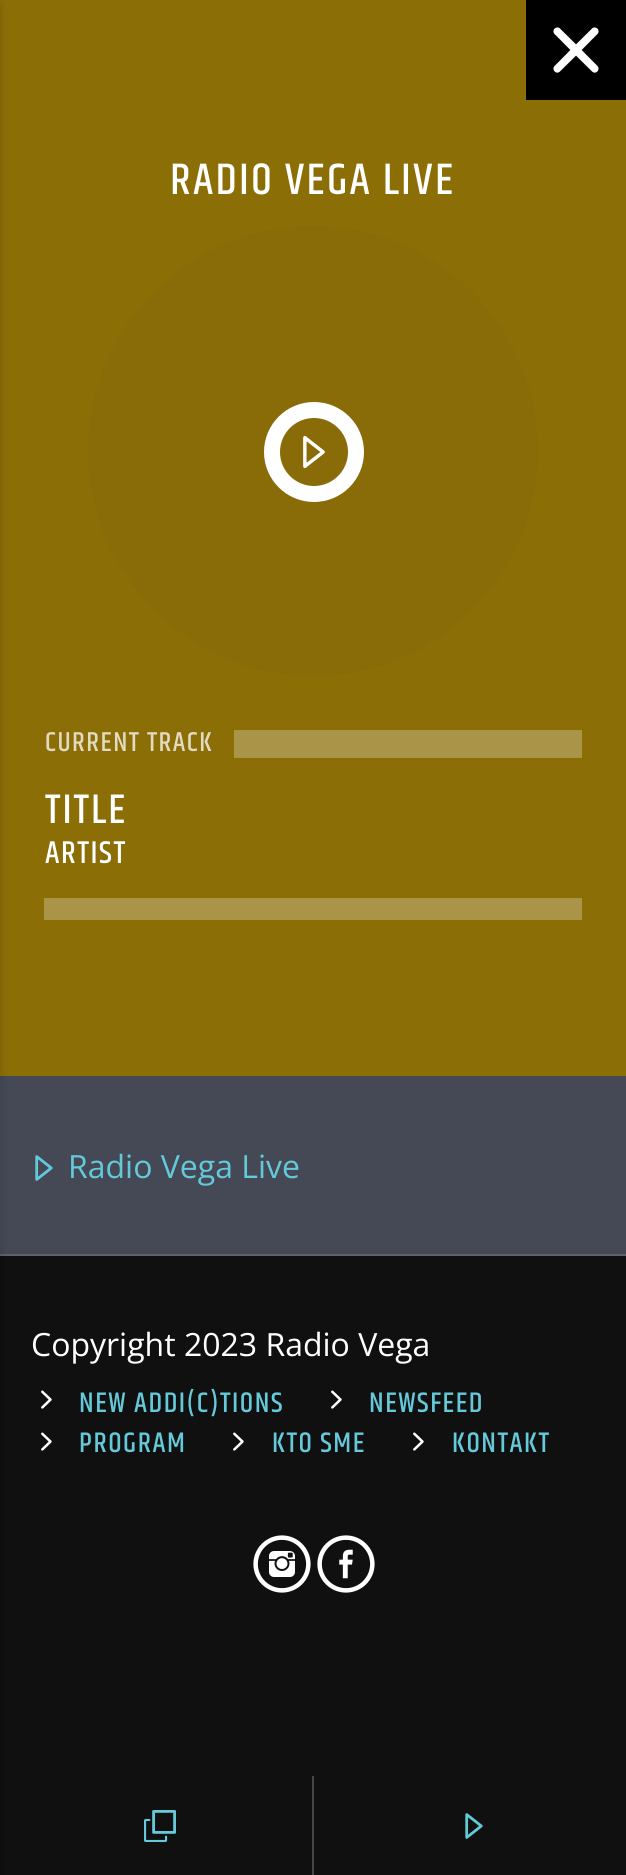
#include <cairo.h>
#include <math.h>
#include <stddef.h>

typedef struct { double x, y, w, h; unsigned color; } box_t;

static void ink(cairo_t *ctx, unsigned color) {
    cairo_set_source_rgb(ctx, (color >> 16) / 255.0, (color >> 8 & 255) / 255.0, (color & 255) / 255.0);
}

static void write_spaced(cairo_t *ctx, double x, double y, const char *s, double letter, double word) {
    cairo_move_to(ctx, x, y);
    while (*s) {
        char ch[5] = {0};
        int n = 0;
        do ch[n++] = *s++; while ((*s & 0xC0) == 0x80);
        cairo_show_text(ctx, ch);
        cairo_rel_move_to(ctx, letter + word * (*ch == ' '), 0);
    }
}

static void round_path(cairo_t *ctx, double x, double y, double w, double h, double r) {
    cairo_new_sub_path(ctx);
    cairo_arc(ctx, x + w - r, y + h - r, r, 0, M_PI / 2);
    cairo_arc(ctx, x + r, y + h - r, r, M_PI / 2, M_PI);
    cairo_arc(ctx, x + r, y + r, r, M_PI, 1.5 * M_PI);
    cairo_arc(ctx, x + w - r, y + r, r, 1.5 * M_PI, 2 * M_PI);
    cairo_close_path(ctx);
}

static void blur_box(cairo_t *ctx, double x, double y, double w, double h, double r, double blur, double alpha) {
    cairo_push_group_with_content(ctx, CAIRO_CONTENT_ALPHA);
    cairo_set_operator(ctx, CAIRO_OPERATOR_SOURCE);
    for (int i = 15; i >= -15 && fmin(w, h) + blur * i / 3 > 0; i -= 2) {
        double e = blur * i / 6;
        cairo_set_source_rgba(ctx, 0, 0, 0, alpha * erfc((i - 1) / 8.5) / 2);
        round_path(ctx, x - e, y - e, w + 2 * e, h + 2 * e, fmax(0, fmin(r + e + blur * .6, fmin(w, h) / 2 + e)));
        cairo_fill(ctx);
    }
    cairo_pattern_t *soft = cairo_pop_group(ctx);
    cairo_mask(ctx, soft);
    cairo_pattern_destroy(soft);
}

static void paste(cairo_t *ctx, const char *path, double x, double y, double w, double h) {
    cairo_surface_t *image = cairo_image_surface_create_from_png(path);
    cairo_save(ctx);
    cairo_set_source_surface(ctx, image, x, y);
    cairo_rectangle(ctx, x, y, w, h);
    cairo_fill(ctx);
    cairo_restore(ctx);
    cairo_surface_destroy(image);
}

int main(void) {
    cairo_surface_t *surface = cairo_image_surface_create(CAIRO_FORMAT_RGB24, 626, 1875);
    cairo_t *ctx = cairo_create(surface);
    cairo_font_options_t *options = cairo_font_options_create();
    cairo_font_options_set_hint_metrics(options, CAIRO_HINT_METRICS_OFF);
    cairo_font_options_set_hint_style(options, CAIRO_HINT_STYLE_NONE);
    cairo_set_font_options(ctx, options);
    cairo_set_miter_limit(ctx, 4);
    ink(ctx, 0x101010);
    cairo_paint(ctx);
    {
        static const box_t items[] = {
            {0, 0, 626, 1076, 0x8C6E07},
            {0, 1076, 626, 178, 0x454955},
            {0, 1254, 626, 2, 0x5F626C},
        };
        for (size_t i = 0; i < sizeof items / sizeof *items; i++) {
            ink(ctx, items[i].color);
            cairo_rectangle(ctx, items[i].x, items[i].y, items[i].w, items[i].h);
            cairo_fill(ctx);
        }
    }
    ink(ctx, 0x000000);
    blur_box(ctx, -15, 4, 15, 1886, 0, 5, 0.16);
    ink(ctx, 0x000000);
    cairo_rectangle(ctx, 526, 0, 100, 100);
    cairo_fill(ctx);
    paste(ctx, "media/1.png", 553, 27, 46, 46);
    cairo_select_font_face(ctx, "Khand Medium", CAIRO_FONT_SLANT_NORMAL, CAIRO_FONT_WEIGHT_NORMAL);
    cairo_set_font_size(ctx, 44.75);
    ink(ctx, 0xFFFFFF);
    write_spaced(ctx, 170, 194, "RADIO VEGA LIVE", 2.25, 0);
    ink(ctx, 0x896B07);
    cairo_new_path(ctx);
    cairo_arc(ctx, 313, 451, 225, 0, 2 * M_PI);
    cairo_fill(ctx);
    cairo_arc(ctx, 314, 452, 42, 0, 2 * M_PI);
    ink(ctx, 0xFFFFFF);
    cairo_set_line_width(ctx, 16);
    cairo_stroke(ctx);
    paste(ctx, "media/2.png", 303, 436, 22, 33);
    cairo_set_font_size(ctx, 27.75);
    ink(ctx, 0xE2DBC1);
    write_spaced(ctx, 45, 751, "CURRENT TRACK", 1.4, 0);
    ink(ctx, 0xAA9448);
    cairo_rectangle(ctx, 234, 730, 348, 28);
    cairo_fill(ctx);
    cairo_set_font_size(ctx, 42);
    ink(ctx, 0xFFFFFF);
    write_spaced(ctx, 45, 823, "TITLE", 2, 0);
    cairo_set_font_size(ctx, 32);
    write_spaced(ctx, 45, 863, "ARTIST", 1.5, 0);
    ink(ctx, 0xAA9448);
    cairo_rectangle(ctx, 44, 898, 538, 22);
    cairo_fill(ctx);
    paste(ctx, "media/3.png", 35, 1155, 18, 26);
    cairo_select_font_face(ctx, "Open Sans", CAIRO_FONT_SLANT_NORMAL, CAIRO_FONT_WEIGHT_NORMAL);
    ink(ctx, 0x64C9D9);
    cairo_move_to(ctx, 68, 1178);
    cairo_show_text(ctx, "Radio Vega Live");
    ink(ctx, 0xFFFFFF);
    cairo_move_to(ctx, 31, 1356);
    cairo_show_text(ctx, "Copyright 2023 Radio Vega");
    paste(ctx, "media/4.png", 41, 1390, 11, 19);
    cairo_select_font_face(ctx, "Khand Medium", CAIRO_FONT_SLANT_NORMAL, CAIRO_FONT_WEIGHT_NORMAL);
    cairo_set_font_size(ctx, 28.75);
    ink(ctx, 0x64C9D9);
    write_spaced(ctx, 79, 1412, "NEW ADDI(C)TIONS", 1.5, 0);
    paste(ctx, "media/4.png", 331, 1390, 11, 19);
    write_spaced(ctx, 369, 1412, "NEWSFEED", 1.5, 0);
    paste(ctx, "media/4.png", 41, 1432, 11, 19);
    write_spaced(ctx, 79, 1452, "PROGRAM", 1.5, 0);
    paste(ctx, "media/4.png", 233, 1432, 11, 19);
    write_spaced(ctx, 272, 1452, "KTO SME", 1.5, 0);
    paste(ctx, "media/4.png", 413, 1432, 11, 19);
    write_spaced(ctx, 452, 1452, "KONTAKT", 1.5, 0);
    paste(ctx, "media/5.png", 253, 1535, 58, 58);
    paste(ctx, "media/6.png", 317, 1535, 58, 58);
    ink(ctx, 0x474747);
    cairo_rectangle(ctx, 312, 1776, 2, 99);
    cairo_fill(ctx);
    paste(ctx, "media/7.png", 144, 1810, 32, 32);
    paste(ctx, "media/8.png", 465, 1813, 18, 26);
    cairo_surface_write_to_png(surface, "image.png");
    cairo_font_options_destroy(options);
    cairo_destroy(ctx);
    cairo_surface_destroy(surface);
    return 0;
}
